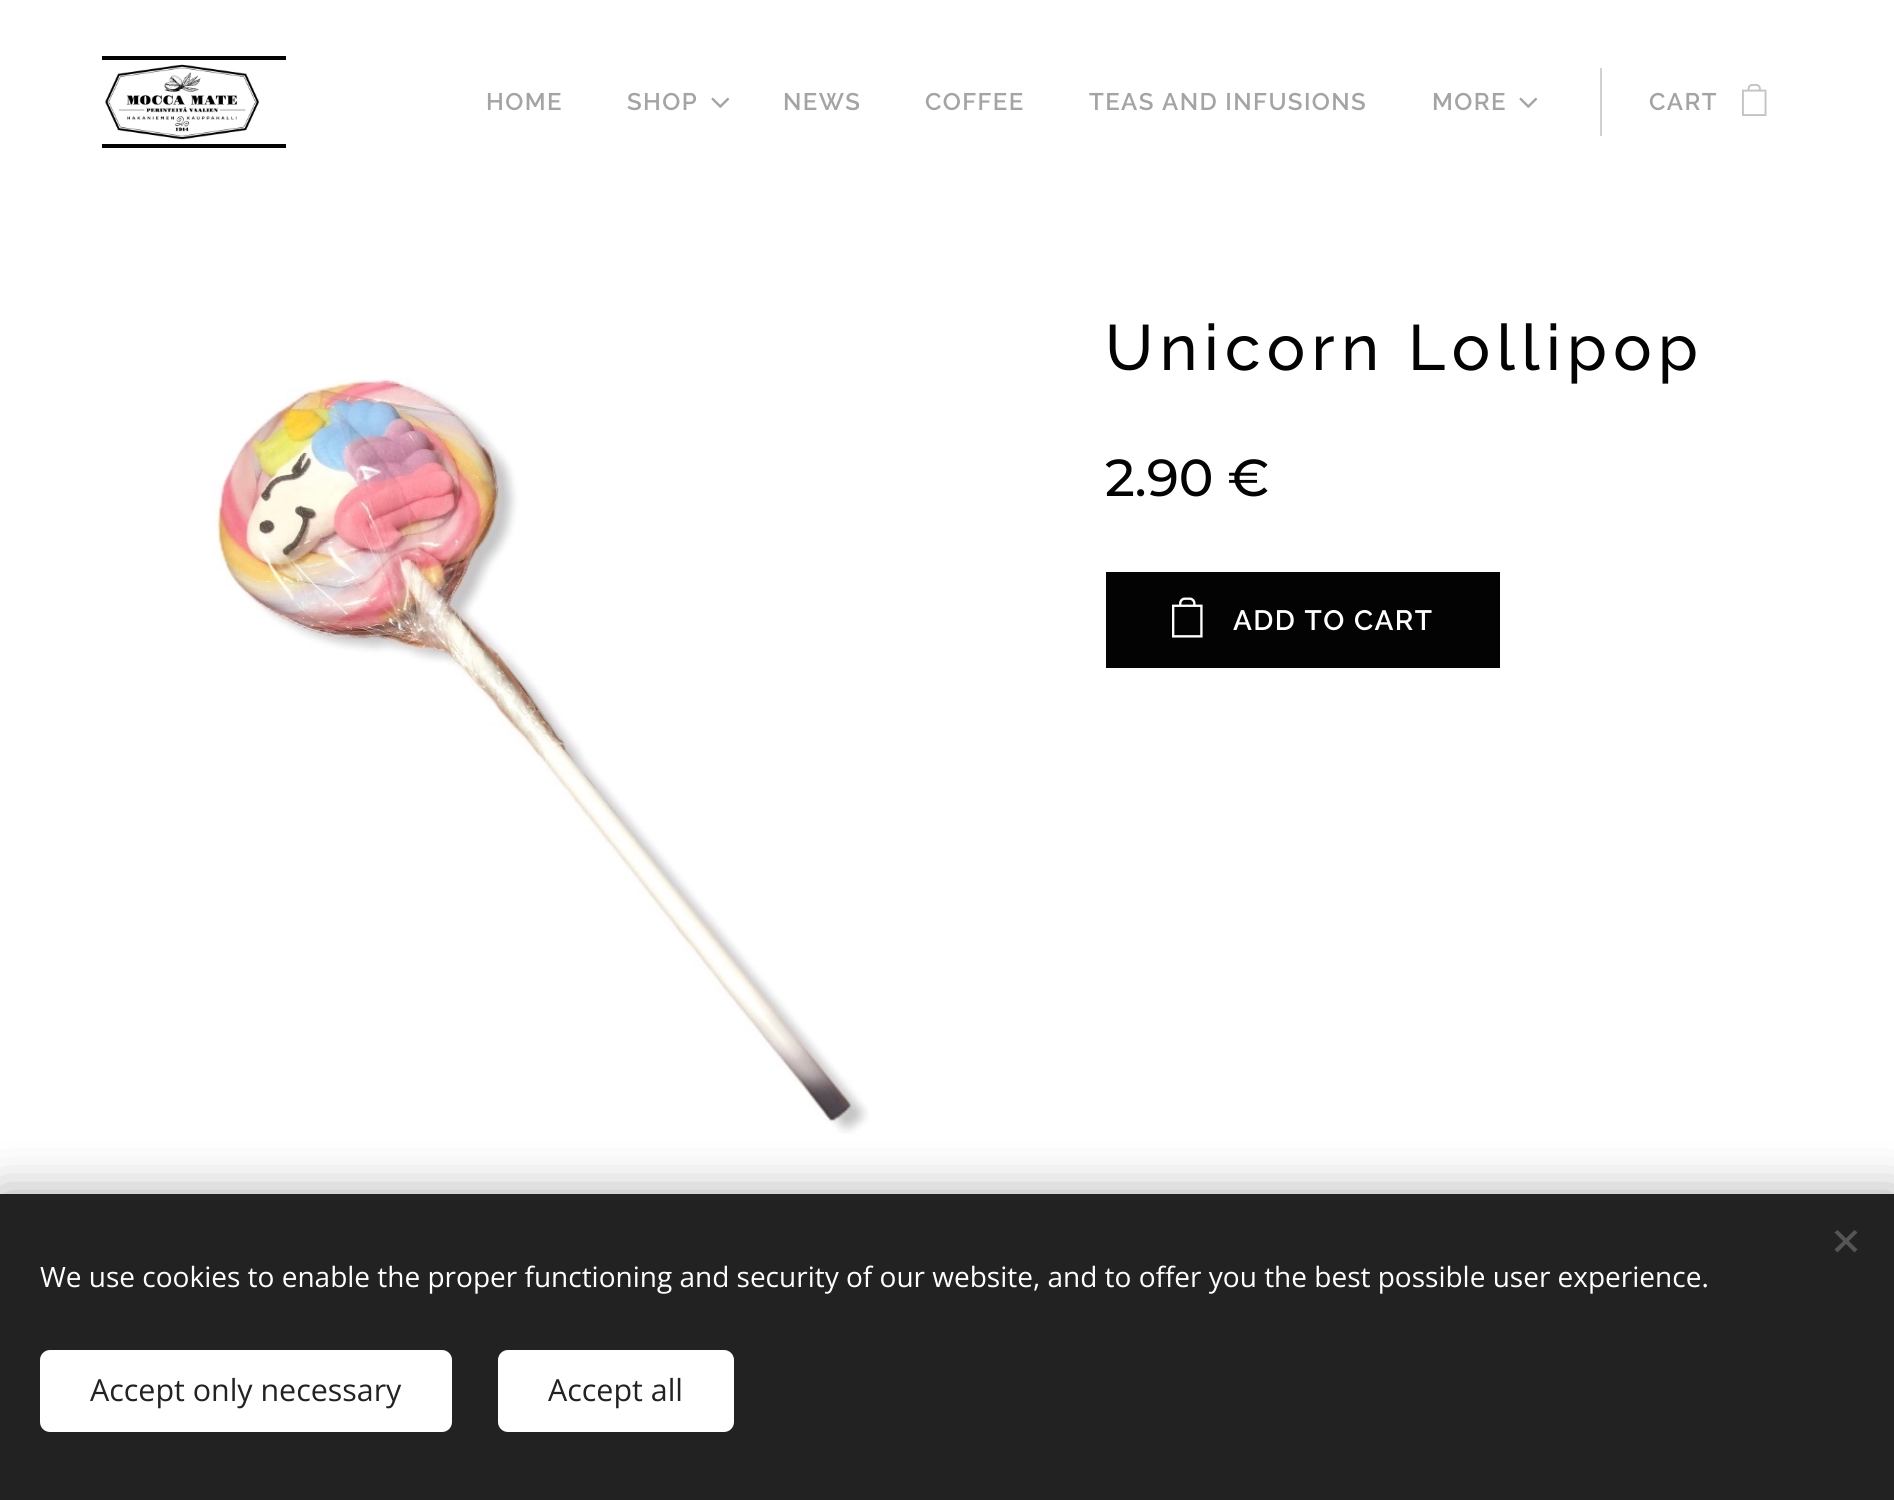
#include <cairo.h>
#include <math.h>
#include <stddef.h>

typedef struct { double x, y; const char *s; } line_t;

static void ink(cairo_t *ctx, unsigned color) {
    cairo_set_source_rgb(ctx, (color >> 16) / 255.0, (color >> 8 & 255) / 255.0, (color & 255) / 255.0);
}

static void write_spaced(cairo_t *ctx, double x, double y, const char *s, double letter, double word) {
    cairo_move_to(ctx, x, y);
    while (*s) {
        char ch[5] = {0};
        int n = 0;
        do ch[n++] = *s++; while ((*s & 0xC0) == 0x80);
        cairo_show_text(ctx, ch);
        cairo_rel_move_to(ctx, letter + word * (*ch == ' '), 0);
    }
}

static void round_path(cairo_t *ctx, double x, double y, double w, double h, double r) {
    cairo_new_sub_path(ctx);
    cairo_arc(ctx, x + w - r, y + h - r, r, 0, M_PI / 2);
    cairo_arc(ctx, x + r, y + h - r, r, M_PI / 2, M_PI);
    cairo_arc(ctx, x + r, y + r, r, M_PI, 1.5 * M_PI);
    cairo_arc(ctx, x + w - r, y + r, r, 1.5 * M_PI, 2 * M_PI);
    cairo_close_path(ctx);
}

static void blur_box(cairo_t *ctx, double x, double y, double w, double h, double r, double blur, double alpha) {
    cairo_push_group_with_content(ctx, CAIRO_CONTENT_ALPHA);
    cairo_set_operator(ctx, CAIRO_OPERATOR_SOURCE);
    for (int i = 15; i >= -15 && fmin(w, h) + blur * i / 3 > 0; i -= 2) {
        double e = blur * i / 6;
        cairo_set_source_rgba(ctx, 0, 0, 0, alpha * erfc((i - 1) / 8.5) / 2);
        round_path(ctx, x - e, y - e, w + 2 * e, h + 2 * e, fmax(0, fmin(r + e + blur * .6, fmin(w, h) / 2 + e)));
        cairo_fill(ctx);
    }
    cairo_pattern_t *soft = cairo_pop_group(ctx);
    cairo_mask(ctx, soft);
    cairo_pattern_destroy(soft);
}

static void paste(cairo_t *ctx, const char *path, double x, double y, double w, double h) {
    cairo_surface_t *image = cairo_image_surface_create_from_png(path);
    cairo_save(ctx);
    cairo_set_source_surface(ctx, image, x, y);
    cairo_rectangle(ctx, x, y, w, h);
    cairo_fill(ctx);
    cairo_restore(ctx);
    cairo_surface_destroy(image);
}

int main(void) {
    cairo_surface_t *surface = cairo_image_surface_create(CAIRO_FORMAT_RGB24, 1894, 1500);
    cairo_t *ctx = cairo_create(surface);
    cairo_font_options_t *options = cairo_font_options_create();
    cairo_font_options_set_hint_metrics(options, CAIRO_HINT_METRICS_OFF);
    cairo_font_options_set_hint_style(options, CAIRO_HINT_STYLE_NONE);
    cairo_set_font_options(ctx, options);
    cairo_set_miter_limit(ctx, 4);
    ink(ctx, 0xFFFFFF);
    cairo_paint(ctx);
    ink(ctx, 0x030303);
    cairo_rectangle(ctx, 102, 56, 184, 4);
    cairo_fill(ctx);
    cairo_rectangle(ctx, 102, 144, 184, 4);
    cairo_fill(ctx);
    paste(ctx, "media/1.png", 105, 64, 155, 76);
    cairo_select_font_face(ctx, "Raleway SemiBold", CAIRO_FONT_SLANT_NORMAL, CAIRO_FONT_WEIGHT_NORMAL);
    cairo_set_font_size(ctx, 24);
    ink(ctx, 0xA4A4A4);
    write_spaced(ctx, 486, 110, "HOME", 1.4, 0);
    write_spaced(ctx, 627, 110, "SHOP", 1.4, 0);
    paste(ctx, "media/2.png", 711, 97, 19, 11);
    {
        static const line_t items[] = {
            {783, 110, "NEWS"},
            {925, 110, "COFFEE"},
            {1089, 110, "TEAS AND INFUSIONS"},
            {1432, 110, "MORE"},
        };
        for (size_t i = 0; i < sizeof items / sizeof *items; i++) {
            write_spaced(ctx, items[i].x, items[i].y, items[i].s, 1.4, 0);
        }
    }
    paste(ctx, "media/2.png", 1519, 97, 19, 11);
    ink(ctx, 0xD1D1D1);
    cairo_rectangle(ctx, 1600, 68, 2, 68);
    cairo_fill(ctx);
    ink(ctx, 0xA4A4A4);
    write_spaced(ctx, 1649, 110, "CART", 1.4, 0);
    paste(ctx, "media/3.png", 1742, 84, 25, 32);
    cairo_select_font_face(ctx, "Raleway Medium", CAIRO_FONT_SLANT_NORMAL, CAIRO_FONT_WEIGHT_NORMAL);
    cairo_set_font_size(ctx, 64);
    ink(ctx, 0x030303);
    write_spaced(ctx, 1105, 370, "Unicorn Lollipop", 6.4, 0);
    paste(ctx, "media/4.png", 212, 378, 657, 756);
    cairo_select_font_face(ctx, "Montserrat Medium", CAIRO_FONT_SLANT_NORMAL, CAIRO_FONT_WEIGHT_NORMAL);
    cairo_set_font_size(ctx, 52);
    cairo_move_to(ctx, 1105, 496);
    cairo_show_text(ctx, "2.90 €");
    cairo_rectangle(ctx, 1106, 572, 394, 96);
    cairo_fill(ctx);
    paste(ctx, "media/5.png", 1172, 597, 31, 41);
    cairo_select_font_face(ctx, "Raleway SemiBold", CAIRO_FONT_SLANT_NORMAL, CAIRO_FONT_WEIGHT_NORMAL);
    cairo_set_font_size(ctx, 28);
    ink(ctx, 0xFFFFFF);
    write_spaced(ctx, 1233, 630, "ADD TO CART", 1.4, 0);
    ink(ctx, 0x000000);
    blur_box(ctx, 0, 1194, 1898, 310, 0, 25, 0.33);
    ink(ctx, 0x222222);
    cairo_rectangle(ctx, 0, 1194, 1894, 306);
    cairo_fill(ctx);
    ink(ctx, 0x555555);
    cairo_new_path(ctx);
    cairo_move_to(ctx, 1834.5, 1249.5);
    cairo_line_to(ctx, 1854.5, 1230);
    cairo_line_to(ctx, 1857.5, 1232.5);
    cairo_line_to(ctx, 1837.5, 1252.5);
    cairo_close_path(ctx);
    cairo_fill(ctx);
    cairo_new_path(ctx);
    cairo_move_to(ctx, 1837.5, 1230);
    cairo_line_to(ctx, 1857.5, 1249.5);
    cairo_line_to(ctx, 1854.5, 1252.5);
    cairo_line_to(ctx, 1834.5, 1232.5);
    cairo_close_path(ctx);
    cairo_fill(ctx);
    cairo_select_font_face(ctx, "Open Sans", CAIRO_FONT_SLANT_NORMAL, CAIRO_FONT_WEIGHT_NORMAL);
    ink(ctx, 0xFFFFFF);
    cairo_move_to(ctx, 40, 1287);
    cairo_show_text(ctx, "We use cookies to enable the proper functioning and security of our website, and to offer you the best possible user experience.");
    round_path(ctx, 40, 1350, 412, 82, 10);
    cairo_fill(ctx);
    cairo_set_font_size(ctx, 30.4);
    ink(ctx, 0x222222);
    cairo_move_to(ctx, 90, 1401);
    cairo_show_text(ctx, "Accept only necessary");
    ink(ctx, 0xFFFFFF);
    round_path(ctx, 498, 1350, 236, 82, 10);
    cairo_fill(ctx);
    ink(ctx, 0x222222);
    cairo_move_to(ctx, 548, 1401);
    cairo_show_text(ctx, "Accept all");
    cairo_surface_write_to_png(surface, "image.png");
    cairo_font_options_destroy(options);
    cairo_destroy(ctx);
    cairo_surface_destroy(surface);
    return 0;
}
